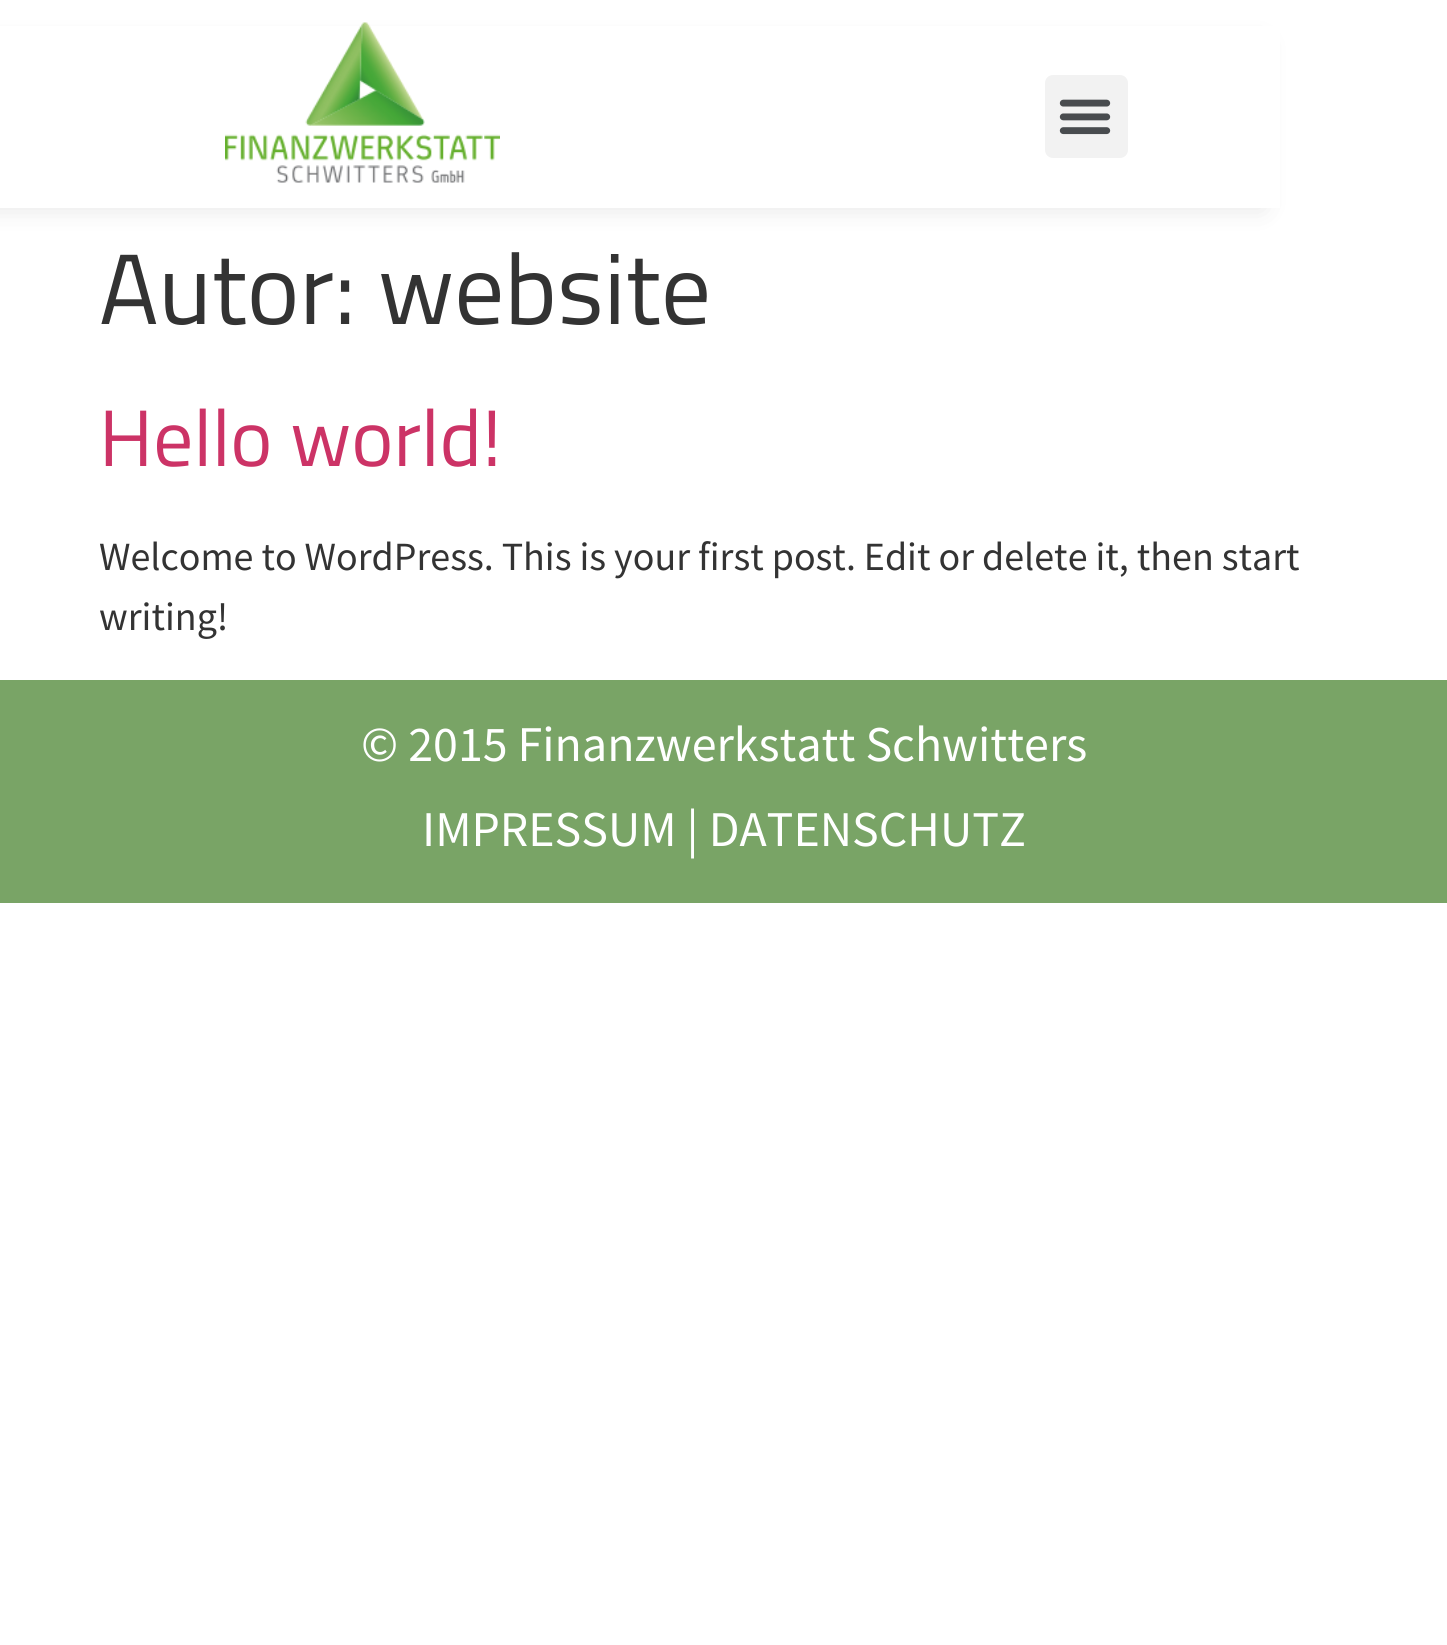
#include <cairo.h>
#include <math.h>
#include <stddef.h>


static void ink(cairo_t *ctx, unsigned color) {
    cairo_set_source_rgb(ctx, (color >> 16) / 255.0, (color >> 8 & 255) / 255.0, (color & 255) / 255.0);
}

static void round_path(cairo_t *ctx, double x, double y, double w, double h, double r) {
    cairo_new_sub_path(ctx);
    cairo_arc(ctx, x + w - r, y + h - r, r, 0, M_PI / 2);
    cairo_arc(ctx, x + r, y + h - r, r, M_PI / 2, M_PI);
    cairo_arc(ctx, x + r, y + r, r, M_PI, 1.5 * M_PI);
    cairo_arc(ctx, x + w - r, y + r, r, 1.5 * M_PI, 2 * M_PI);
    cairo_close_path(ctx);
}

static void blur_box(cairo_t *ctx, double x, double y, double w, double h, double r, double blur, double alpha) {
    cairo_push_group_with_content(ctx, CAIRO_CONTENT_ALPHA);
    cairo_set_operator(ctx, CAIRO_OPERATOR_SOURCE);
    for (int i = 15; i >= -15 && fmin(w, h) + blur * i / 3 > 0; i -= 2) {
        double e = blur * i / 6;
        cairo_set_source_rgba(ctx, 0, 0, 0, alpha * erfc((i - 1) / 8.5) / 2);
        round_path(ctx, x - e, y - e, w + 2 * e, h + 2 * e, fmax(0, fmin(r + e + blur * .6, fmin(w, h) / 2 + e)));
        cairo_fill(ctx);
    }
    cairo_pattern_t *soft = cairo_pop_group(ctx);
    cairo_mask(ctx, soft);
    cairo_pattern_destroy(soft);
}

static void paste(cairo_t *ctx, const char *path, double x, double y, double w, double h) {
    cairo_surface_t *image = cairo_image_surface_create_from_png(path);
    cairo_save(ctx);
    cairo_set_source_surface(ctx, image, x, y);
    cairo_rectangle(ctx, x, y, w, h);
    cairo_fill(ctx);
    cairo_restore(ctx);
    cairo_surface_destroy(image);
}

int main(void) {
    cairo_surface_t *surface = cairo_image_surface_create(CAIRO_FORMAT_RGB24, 1447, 1645);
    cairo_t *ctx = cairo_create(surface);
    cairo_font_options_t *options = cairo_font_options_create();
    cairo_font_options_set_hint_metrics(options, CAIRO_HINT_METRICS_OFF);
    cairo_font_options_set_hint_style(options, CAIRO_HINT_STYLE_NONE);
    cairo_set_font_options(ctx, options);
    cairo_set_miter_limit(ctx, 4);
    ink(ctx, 0xFFFFFF);
    cairo_paint(ctx);
    ink(ctx, 0x292929);
    blur_box(ctx, -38, 43, 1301, 165, 0, 12.5, 0.13);
    ink(ctx, 0xFFFFFF);
    cairo_rectangle(ctx, 0, 26, 1280, 182);
    cairo_fill(ctx);
    paste(ctx, "media/1.png", 225, 22, 275, 161);
    ink(ctx, 0xF2F2F2);
    round_path(ctx, 1045, 75, 83, 83, 8);
    cairo_fill(ctx);
    paste(ctx, "media/2.png", 1059, 99, 52, 36);
    cairo_select_font_face(ctx, "Titillium Web", CAIRO_FONT_SLANT_NORMAL, CAIRO_FONT_WEIGHT_NORMAL);
    cairo_set_font_size(ctx, 100);
    ink(ctx, 0x333333);
    cairo_move_to(ctx, 99, 324);
    cairo_show_text(ctx, "Autor: website");
    cairo_set_font_size(ctx, 80);
    ink(ctx, 0xCC3366);
    cairo_move_to(ctx, 99, 466);
    cairo_show_text(ctx, "Hello world!");
    cairo_select_font_face(ctx, "Source Sans Pro", CAIRO_FONT_SLANT_NORMAL, CAIRO_FONT_WEIGHT_NORMAL);
    cairo_set_font_size(ctx, 40);
    ink(ctx, 0x333333);
    cairo_move_to(ctx, 99, 570);
    cairo_show_text(ctx, "Welcome to WordPress. This is your first post. Edit or delete it, then start");
    cairo_move_to(ctx, 99, 630);
    cairo_show_text(ctx, "writing!");
    ink(ctx, 0x79A466);
    cairo_rectangle(ctx, 0, 680, 1447, 223);
    cairo_fill(ctx);
    cairo_set_font_size(ctx, 50);
    ink(ctx, 0xFFFFFF);
    cairo_move_to(ctx, 361, 761);
    cairo_show_text(ctx, "© 2015 Finanzwerkstatt Schwitters");
    cairo_move_to(ctx, 422, 846);
    cairo_show_text(ctx, "IMPRESSUM | DATENSCHUTZ");
    cairo_surface_write_to_png(surface, "image.png");
    cairo_font_options_destroy(options);
    cairo_destroy(ctx);
    cairo_surface_destroy(surface);
    return 0;
}
